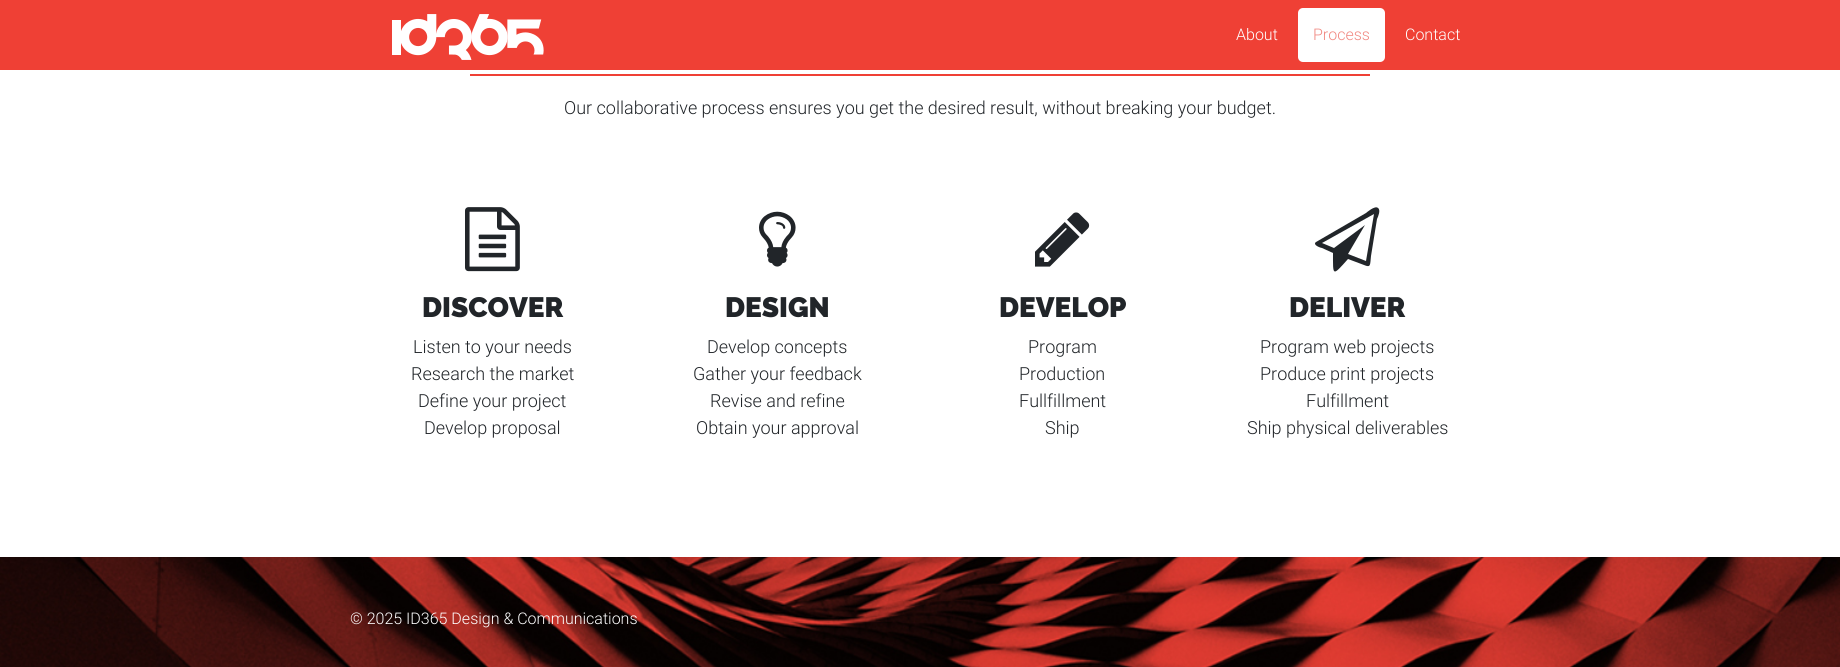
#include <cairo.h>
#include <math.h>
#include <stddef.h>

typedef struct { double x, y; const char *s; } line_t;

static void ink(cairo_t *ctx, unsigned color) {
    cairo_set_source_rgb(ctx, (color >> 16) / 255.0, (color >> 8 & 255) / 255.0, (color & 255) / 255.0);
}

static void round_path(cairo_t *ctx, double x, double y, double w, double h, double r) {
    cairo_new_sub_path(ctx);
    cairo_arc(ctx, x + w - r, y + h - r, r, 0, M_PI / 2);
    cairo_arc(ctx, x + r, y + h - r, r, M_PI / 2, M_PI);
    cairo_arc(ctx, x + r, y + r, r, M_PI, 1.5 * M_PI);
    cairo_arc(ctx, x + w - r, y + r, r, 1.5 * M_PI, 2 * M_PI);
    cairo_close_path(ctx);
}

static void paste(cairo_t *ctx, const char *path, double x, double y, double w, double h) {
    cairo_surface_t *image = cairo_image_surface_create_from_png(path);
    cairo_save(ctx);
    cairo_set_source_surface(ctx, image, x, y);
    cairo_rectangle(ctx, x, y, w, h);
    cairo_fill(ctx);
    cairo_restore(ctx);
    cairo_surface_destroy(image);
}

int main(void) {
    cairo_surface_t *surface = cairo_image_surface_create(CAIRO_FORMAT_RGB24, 1840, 667);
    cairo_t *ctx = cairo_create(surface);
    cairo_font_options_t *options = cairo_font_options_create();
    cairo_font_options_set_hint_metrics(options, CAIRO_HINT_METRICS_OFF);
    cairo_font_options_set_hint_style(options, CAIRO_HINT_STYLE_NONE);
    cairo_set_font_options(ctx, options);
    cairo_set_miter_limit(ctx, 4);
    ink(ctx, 0xFFFFFF);
    cairo_paint(ctx);
    ink(ctx, 0xEF4035);
    cairo_rectangle(ctx, 0, 0, 1840, 70);
    cairo_fill(ctx);
    paste(ctx, "media/1.png", 392, 14, 152, 46);
    cairo_select_font_face(ctx, "Roboto Light", CAIRO_FONT_SLANT_NORMAL, CAIRO_FONT_WEIGHT_NORMAL);
    cairo_set_font_size(ctx, 16);
    ink(ctx, 0xFFFFFF);
    cairo_move_to(ctx, 1236, 40);
    cairo_show_text(ctx, "About");
    round_path(ctx, 1298, 8, 87, 54, 5);
    cairo_fill(ctx);
    ink(ctx, 0xF18982);
    cairo_move_to(ctx, 1313, 40);
    cairo_show_text(ctx, "Process");
    ink(ctx, 0xFFFFFF);
    cairo_move_to(ctx, 1405, 40);
    cairo_show_text(ctx, "Contact");
    ink(ctx, 0xEF4035);
    cairo_rectangle(ctx, 470, 74, 900, 2);
    cairo_fill(ctx);
    cairo_set_font_size(ctx, 18);
    ink(ctx, 0x212529);
    cairo_move_to(ctx, 564, 114);
    cairo_show_text(ctx, "Our collaborative process ensures you get the desired result, without breaking your budget.");
    paste(ctx, "media/2.png", 465, 207, 55, 65);
    cairo_select_font_face(ctx, "Raleway Black", CAIRO_FONT_SLANT_NORMAL, CAIRO_FONT_WEIGHT_NORMAL);
    cairo_set_font_size(ctx, 28);
    cairo_move_to(ctx, 422, 317);
    cairo_show_text(ctx, "DISCOVER");
    cairo_select_font_face(ctx, "Roboto Light", CAIRO_FONT_SLANT_NORMAL, CAIRO_FONT_WEIGHT_NORMAL);
    cairo_set_font_size(ctx, 18);
    {
        static const line_t items[] = {
            {413, 353, "Listen to your needs"},
            {411, 380, "Research the market"},
            {418, 407, "Define your project"},
            {424, 434, "Develop proposal"},
        };
        for (size_t i = 0; i < sizeof items / sizeof *items; i++) {
            cairo_move_to(ctx, items[i].x, items[i].y);
            cairo_show_text(ctx, items[i].s);
        }
    }
    paste(ctx, "media/3.png", 759, 211, 37, 56);
    cairo_select_font_face(ctx, "Raleway Black", CAIRO_FONT_SLANT_NORMAL, CAIRO_FONT_WEIGHT_NORMAL);
    cairo_set_font_size(ctx, 28);
    cairo_move_to(ctx, 725, 317);
    cairo_show_text(ctx, "DESIGN");
    cairo_select_font_face(ctx, "Roboto Light", CAIRO_FONT_SLANT_NORMAL, CAIRO_FONT_WEIGHT_NORMAL);
    cairo_set_font_size(ctx, 18);
    {
        static const line_t items[] = {
            {707, 353, "Develop concepts"},
            {693, 380, "Gather your feedback"},
            {710, 407, "Revise and refine"},
            {696, 434, "Obtain your approval"},
        };
        for (size_t i = 0; i < sizeof items / sizeof *items; i++) {
            cairo_move_to(ctx, items[i].x, items[i].y);
            cairo_show_text(ctx, items[i].s);
        }
    }
    paste(ctx, "media/4.png", 1035, 212, 55, 55);
    cairo_select_font_face(ctx, "Raleway Black", CAIRO_FONT_SLANT_NORMAL, CAIRO_FONT_WEIGHT_NORMAL);
    cairo_set_font_size(ctx, 28);
    cairo_move_to(ctx, 999, 317);
    cairo_show_text(ctx, "DEVELOP");
    cairo_select_font_face(ctx, "Roboto Light", CAIRO_FONT_SLANT_NORMAL, CAIRO_FONT_WEIGHT_NORMAL);
    cairo_set_font_size(ctx, 18);
    {
        static const line_t items[] = {
            {1028, 353, "Program"},
            {1019, 380, "Production"},
            {1019, 407, "Fullfillment"},
            {1045, 434, "Ship"},
        };
        for (size_t i = 0; i < sizeof items / sizeof *items; i++) {
            cairo_move_to(ctx, items[i].x, items[i].y);
            cairo_show_text(ctx, items[i].s);
        }
    }
    cairo_new_path(ctx);
    cairo_move_to(ctx, 1378, 208);
    cairo_curve_to(ctx, 1381, 210, 1378, 217, 1377, 219);
    cairo_line_to(ctx, 1371, 256);
    cairo_curve_to(ctx, 1370, 265, 1371, 268, 1364, 265);
    cairo_line_to(ctx, 1348, 259);
    cairo_curve_to(ctx, 1332, 277, 1333, 276, 1333, 253);
    cairo_line_to(ctx, 1322, 248);
    cairo_curve_to(ctx, 1321, 248, 1312, 245, 1316, 242);
    cairo_line_to(ctx, 1366, 213);
    cairo_curve_to(ctx, 1366, 213, 1375, 205, 1378, 208);
    cairo_close_path(ctx);
    cairo_move_to(ctx, 1366, 261);
    cairo_line_to(ctx, 1374, 214);
    cairo_line_to(ctx, 1322, 243);
    cairo_line_to(ctx, 1334, 248);
    cairo_line_to(ctx, 1365, 225);
    cairo_line_to(ctx, 1348, 254);
    cairo_close_path(ctx);
    cairo_fill(ctx);
    cairo_select_font_face(ctx, "Raleway Black", CAIRO_FONT_SLANT_NORMAL, CAIRO_FONT_WEIGHT_NORMAL);
    cairo_set_font_size(ctx, 28);
    cairo_move_to(ctx, 1289, 317);
    cairo_show_text(ctx, "DELIVER");
    cairo_select_font_face(ctx, "Roboto Light", CAIRO_FONT_SLANT_NORMAL, CAIRO_FONT_WEIGHT_NORMAL);
    cairo_set_font_size(ctx, 18);
    {
        static const line_t items[] = {
            {1260, 353, "Program web projects"},
            {1260, 380, "Produce print projects"},
            {1306, 407, "Fulfillment"},
            {1247, 434, "Ship physical deliverables"},
        };
        for (size_t i = 0; i < sizeof items / sizeof *items; i++) {
            cairo_move_to(ctx, items[i].x, items[i].y);
            cairo_show_text(ctx, items[i].s);
        }
    }
    paste(ctx, "media/5.png", 0, 557, 1840, 110);
    cairo_set_font_size(ctx, 16);
    ink(ctx, 0xFFFFFF);
    cairo_move_to(ctx, 350, 624);
    cairo_show_text(ctx, "© 2025 ID365 Design & Communications");
    cairo_surface_write_to_png(surface, "image.png");
    cairo_font_options_destroy(options);
    cairo_destroy(ctx);
    cairo_surface_destroy(surface);
    return 0;
}
